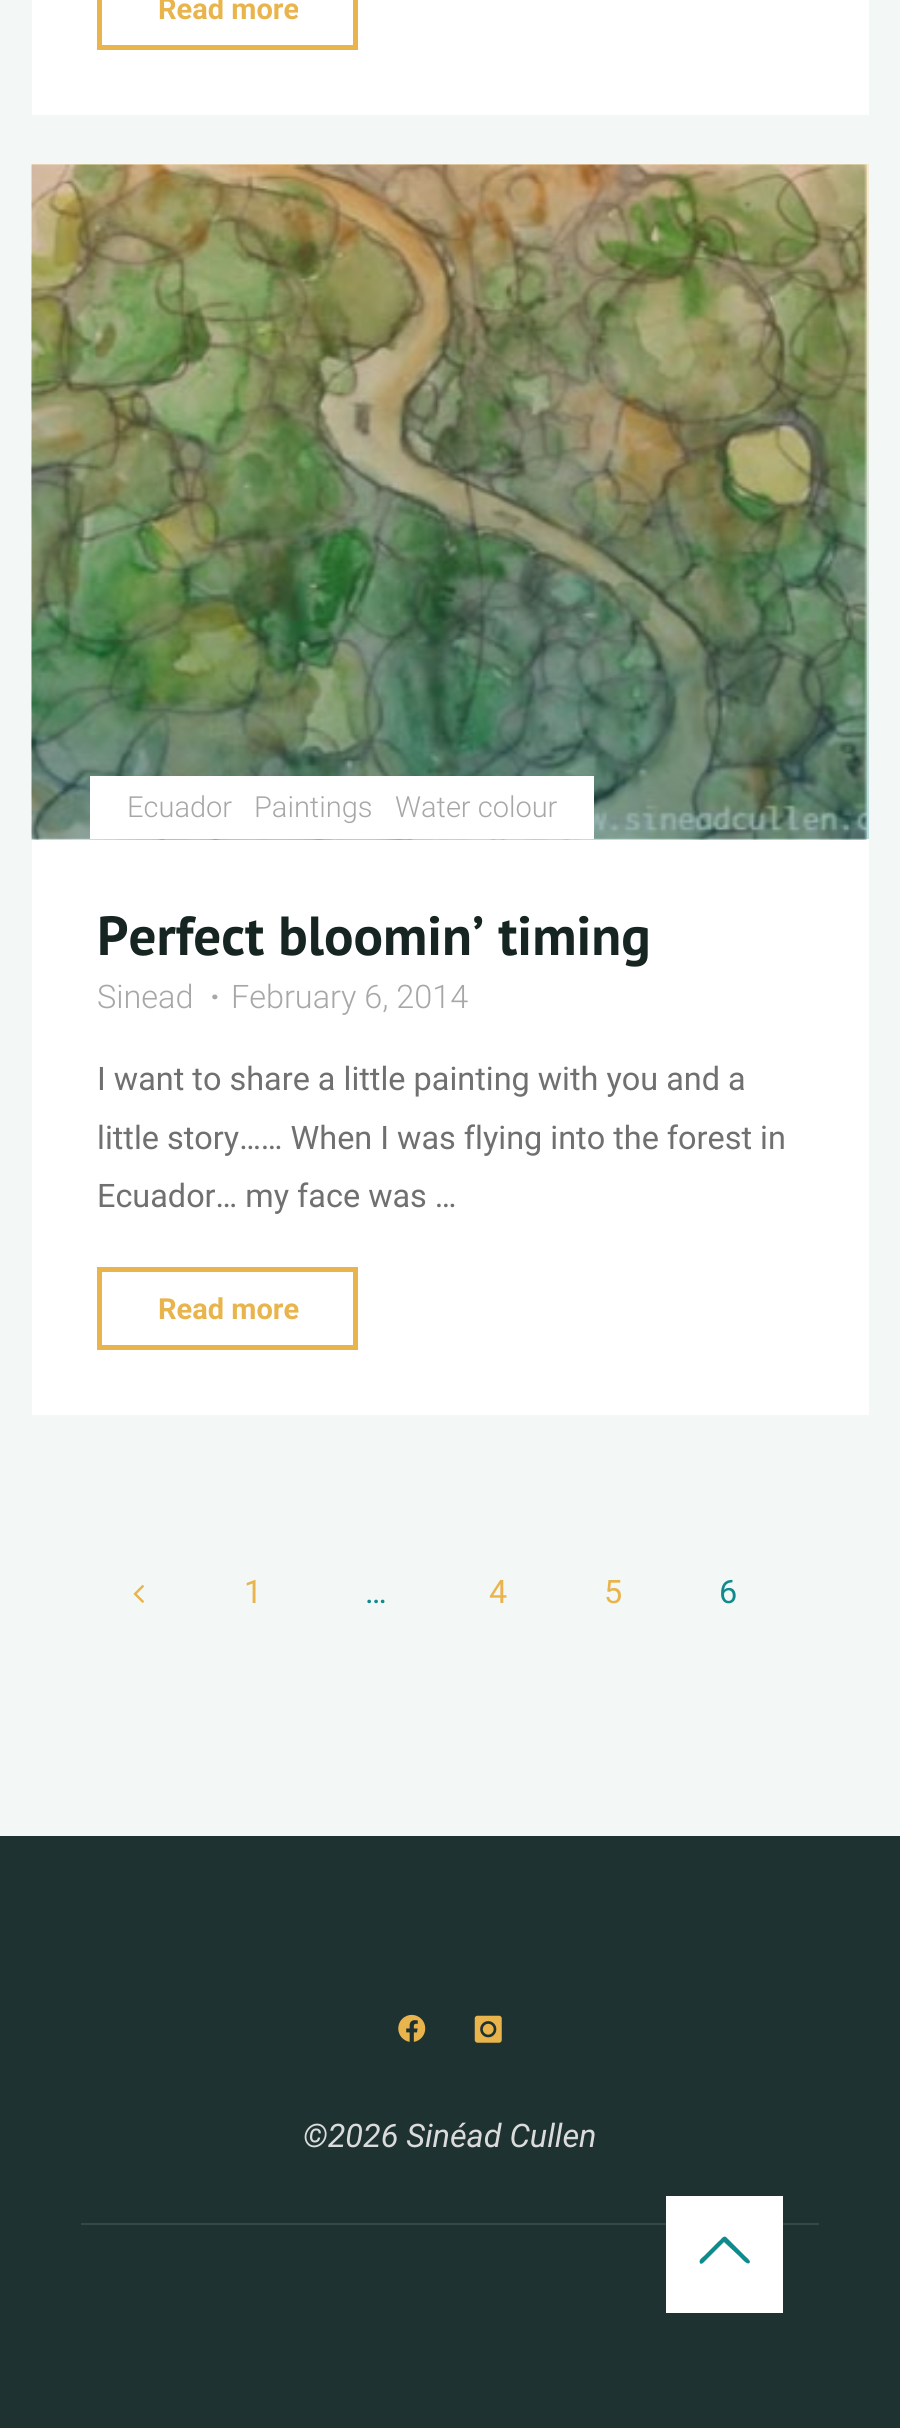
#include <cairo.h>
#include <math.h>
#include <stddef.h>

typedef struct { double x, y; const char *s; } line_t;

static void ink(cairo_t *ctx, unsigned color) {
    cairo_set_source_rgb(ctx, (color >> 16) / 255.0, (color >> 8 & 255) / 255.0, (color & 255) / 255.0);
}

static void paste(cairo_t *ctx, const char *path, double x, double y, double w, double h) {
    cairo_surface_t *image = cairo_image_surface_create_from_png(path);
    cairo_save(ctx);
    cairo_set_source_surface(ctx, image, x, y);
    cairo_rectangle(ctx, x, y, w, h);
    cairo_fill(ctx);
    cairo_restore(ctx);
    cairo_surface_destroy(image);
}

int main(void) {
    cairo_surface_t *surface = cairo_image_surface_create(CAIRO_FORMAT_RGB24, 900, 2428);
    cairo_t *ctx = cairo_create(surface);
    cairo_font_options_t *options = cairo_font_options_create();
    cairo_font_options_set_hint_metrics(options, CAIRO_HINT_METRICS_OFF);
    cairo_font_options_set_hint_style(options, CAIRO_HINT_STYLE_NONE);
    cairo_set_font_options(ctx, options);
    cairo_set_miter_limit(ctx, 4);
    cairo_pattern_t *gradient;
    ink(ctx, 0xF3F7F6);
    cairo_paint(ctx);
    ink(ctx, 0xFFFFFF);
    cairo_rectangle(ctx, 32, 0, 837, 115);
    cairo_fill(ctx);
    cairo_rectangle(ctx, 99.5, -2.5, 256, 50);
    ink(ctx, 0xE9B44C);
    cairo_set_line_width(ctx, 5);
    cairo_stroke(ctx);
    cairo_select_font_face(ctx, "Roboto", CAIRO_FONT_SLANT_NORMAL, CAIRO_FONT_WEIGHT_BOLD);
    cairo_set_font_size(ctx, 29);
    cairo_move_to(ctx, 158, 19);
    cairo_show_text(ctx, "Read more");
    ink(ctx, 0xFFFFFF);
    cairo_rectangle(ctx, 32, 164, 837, 1251);
    cairo_fill(ctx);
    paste(ctx, "media/1.png", 31, 164, 836, 676);
    gradient = cairo_pattern_create_linear(450, 164, 450, 839);
    cairo_pattern_add_color_stop_rgba(gradient, 0, 0.914, 0.706, 0.298, 0.3);
    cairo_pattern_add_color_stop_rgba(gradient, 1, 0.059, 0.545, 0.553, 0.3);
    cairo_set_source(ctx, gradient);
    cairo_pattern_destroy(gradient);
    cairo_rectangle(ctx, 32, 164, 837, 675);
    cairo_fill(ctx);
    ink(ctx, 0xFFFFFF);
    cairo_rectangle(ctx, 90, 776, 504, 63);
    cairo_fill(ctx);
    cairo_select_font_face(ctx, "Roboto Light", CAIRO_FONT_SLANT_NORMAL, CAIRO_FONT_WEIGHT_NORMAL);
    ink(ctx, 0xA7A7A7);
    {
        static const line_t items[] = {
            {127, 817, "Ecuador"},
            {254, 817, "Paintings"},
            {395, 817, "Water colour"},
        };
        for (size_t i = 0; i < sizeof items / sizeof *items; i++) {
            cairo_move_to(ctx, items[i].x, items[i].y);
            cairo_show_text(ctx, items[i].s);
        }
    }
    cairo_select_font_face(ctx, "PT Sans", CAIRO_FONT_SLANT_NORMAL, CAIRO_FONT_WEIGHT_BOLD);
    cairo_set_font_size(ctx, 55);
    ink(ctx, 0x162521);
    cairo_move_to(ctx, 97, 955);
    cairo_show_text(ctx, "Perfect bloomin’ timing");
    cairo_select_font_face(ctx, "Roboto Light", CAIRO_FONT_SLANT_NORMAL, CAIRO_FONT_WEIGHT_NORMAL);
    cairo_set_font_size(ctx, 32.4);
    ink(ctx, 0xA7A7A7);
    cairo_move_to(ctx, 97, 1008);
    cairo_show_text(ctx, "Sinead");
    cairo_select_font_face(ctx, "Roboto", CAIRO_FONT_SLANT_NORMAL, CAIRO_FONT_WEIGHT_BOLD);
    cairo_move_to(ctx, 210, 1008);
    cairo_show_text(ctx, "·");
    cairo_select_font_face(ctx, "Roboto Light", CAIRO_FONT_SLANT_NORMAL, CAIRO_FONT_WEIGHT_NORMAL);
    cairo_move_to(ctx, 231, 1008);
    cairo_show_text(ctx, "February 6, 2014");
    cairo_select_font_face(ctx, "Roboto", CAIRO_FONT_SLANT_NORMAL, CAIRO_FONT_WEIGHT_NORMAL);
    ink(ctx, 0x707070);
    {
        static const line_t items[] = {
            {97, 1090, "I want to share a little painting with you and a"},
            {97, 1149, "little story…… When I was flying into the forest in"},
            {97, 1207, "Ecuador… my face was …"},
        };
        for (size_t i = 0; i < sizeof items / sizeof *items; i++) {
            cairo_move_to(ctx, items[i].x, items[i].y);
            cairo_show_text(ctx, items[i].s);
        }
    }
    cairo_rectangle(ctx, 99.5, 1269.5, 256, 78);
    ink(ctx, 0xE9B44C);
    cairo_stroke(ctx);
    cairo_select_font_face(ctx, "Roboto", CAIRO_FONT_SLANT_NORMAL, CAIRO_FONT_WEIGHT_BOLD);
    cairo_set_font_size(ctx, 29);
    cairo_move_to(ctx, 158, 1319);
    cairo_show_text(ctx, "Read more");
    paste(ctx, "media/2.png", 133, 1584, 12, 19);
    cairo_select_font_face(ctx, "Roboto", CAIRO_FONT_SLANT_NORMAL, CAIRO_FONT_WEIGHT_NORMAL);
    cairo_set_font_size(ctx, 32.4);
    cairo_move_to(ctx, 244, 1603);
    cairo_show_text(ctx, "1");
    ink(ctx, 0x0F8B8D);
    cairo_move_to(ctx, 365, 1603);
    cairo_show_text(ctx, "…");
    ink(ctx, 0xE9B44C);
    cairo_move_to(ctx, 489, 1603);
    cairo_show_text(ctx, "4");
    cairo_move_to(ctx, 604, 1603);
    cairo_show_text(ctx, "5");
    ink(ctx, 0x0F8B8D);
    cairo_move_to(ctx, 719, 1603);
    cairo_show_text(ctx, "6");
    ink(ctx, 0x1E3231);
    cairo_rectangle(ctx, 0, 1836, 900, 592);
    cairo_fill(ctx);
    paste(ctx, "media/3.png", 398, 2014, 28, 28);
    paste(ctx, "media/4.png", 474, 2015, 28, 28);
    cairo_select_font_face(ctx, "Roboto", CAIRO_FONT_SLANT_ITALIC, CAIRO_FONT_WEIGHT_NORMAL);
    ink(ctx, 0xDBDBDB);
    cairo_move_to(ctx, 303, 2147);
    cairo_show_text(ctx, "©2026 Sinéad Cullen");
    ink(ctx, 0x354746);
    cairo_rectangle(ctx, 81, 2223, 738, 2);
    cairo_fill(ctx);
    ink(ctx, 0xFFFFFF);
    cairo_rectangle(ctx, 666, 2196, 117, 117);
    cairo_fill(ctx);
    ink(ctx, 0x0F8B8D);
    cairo_new_path(ctx);
    cairo_move_to(ctx, 703, 2263);
    cairo_curve_to(ctx, 702, 2264, 700, 2264, 700, 2263);
    cairo_curve_to(ctx, 698, 2260, 703, 2257, 704, 2256);
    cairo_line_to(ctx, 719, 2241);
    cairo_curve_to(ctx, 720, 2241, 723, 2235, 726, 2237);
    cairo_line_to(ctx, 745, 2256);
    cairo_curve_to(ctx, 746, 2257, 750, 2260, 750, 2262);
    cairo_curve_to(ctx, 748, 2266, 744, 2261, 739, 2256);
    cairo_line_to(ctx, 724, 2242);
    cairo_close_path(ctx);
    cairo_fill(ctx);
    cairo_surface_write_to_png(surface, "image.png");
    cairo_font_options_destroy(options);
    cairo_destroy(ctx);
    cairo_surface_destroy(surface);
    return 0;
}
